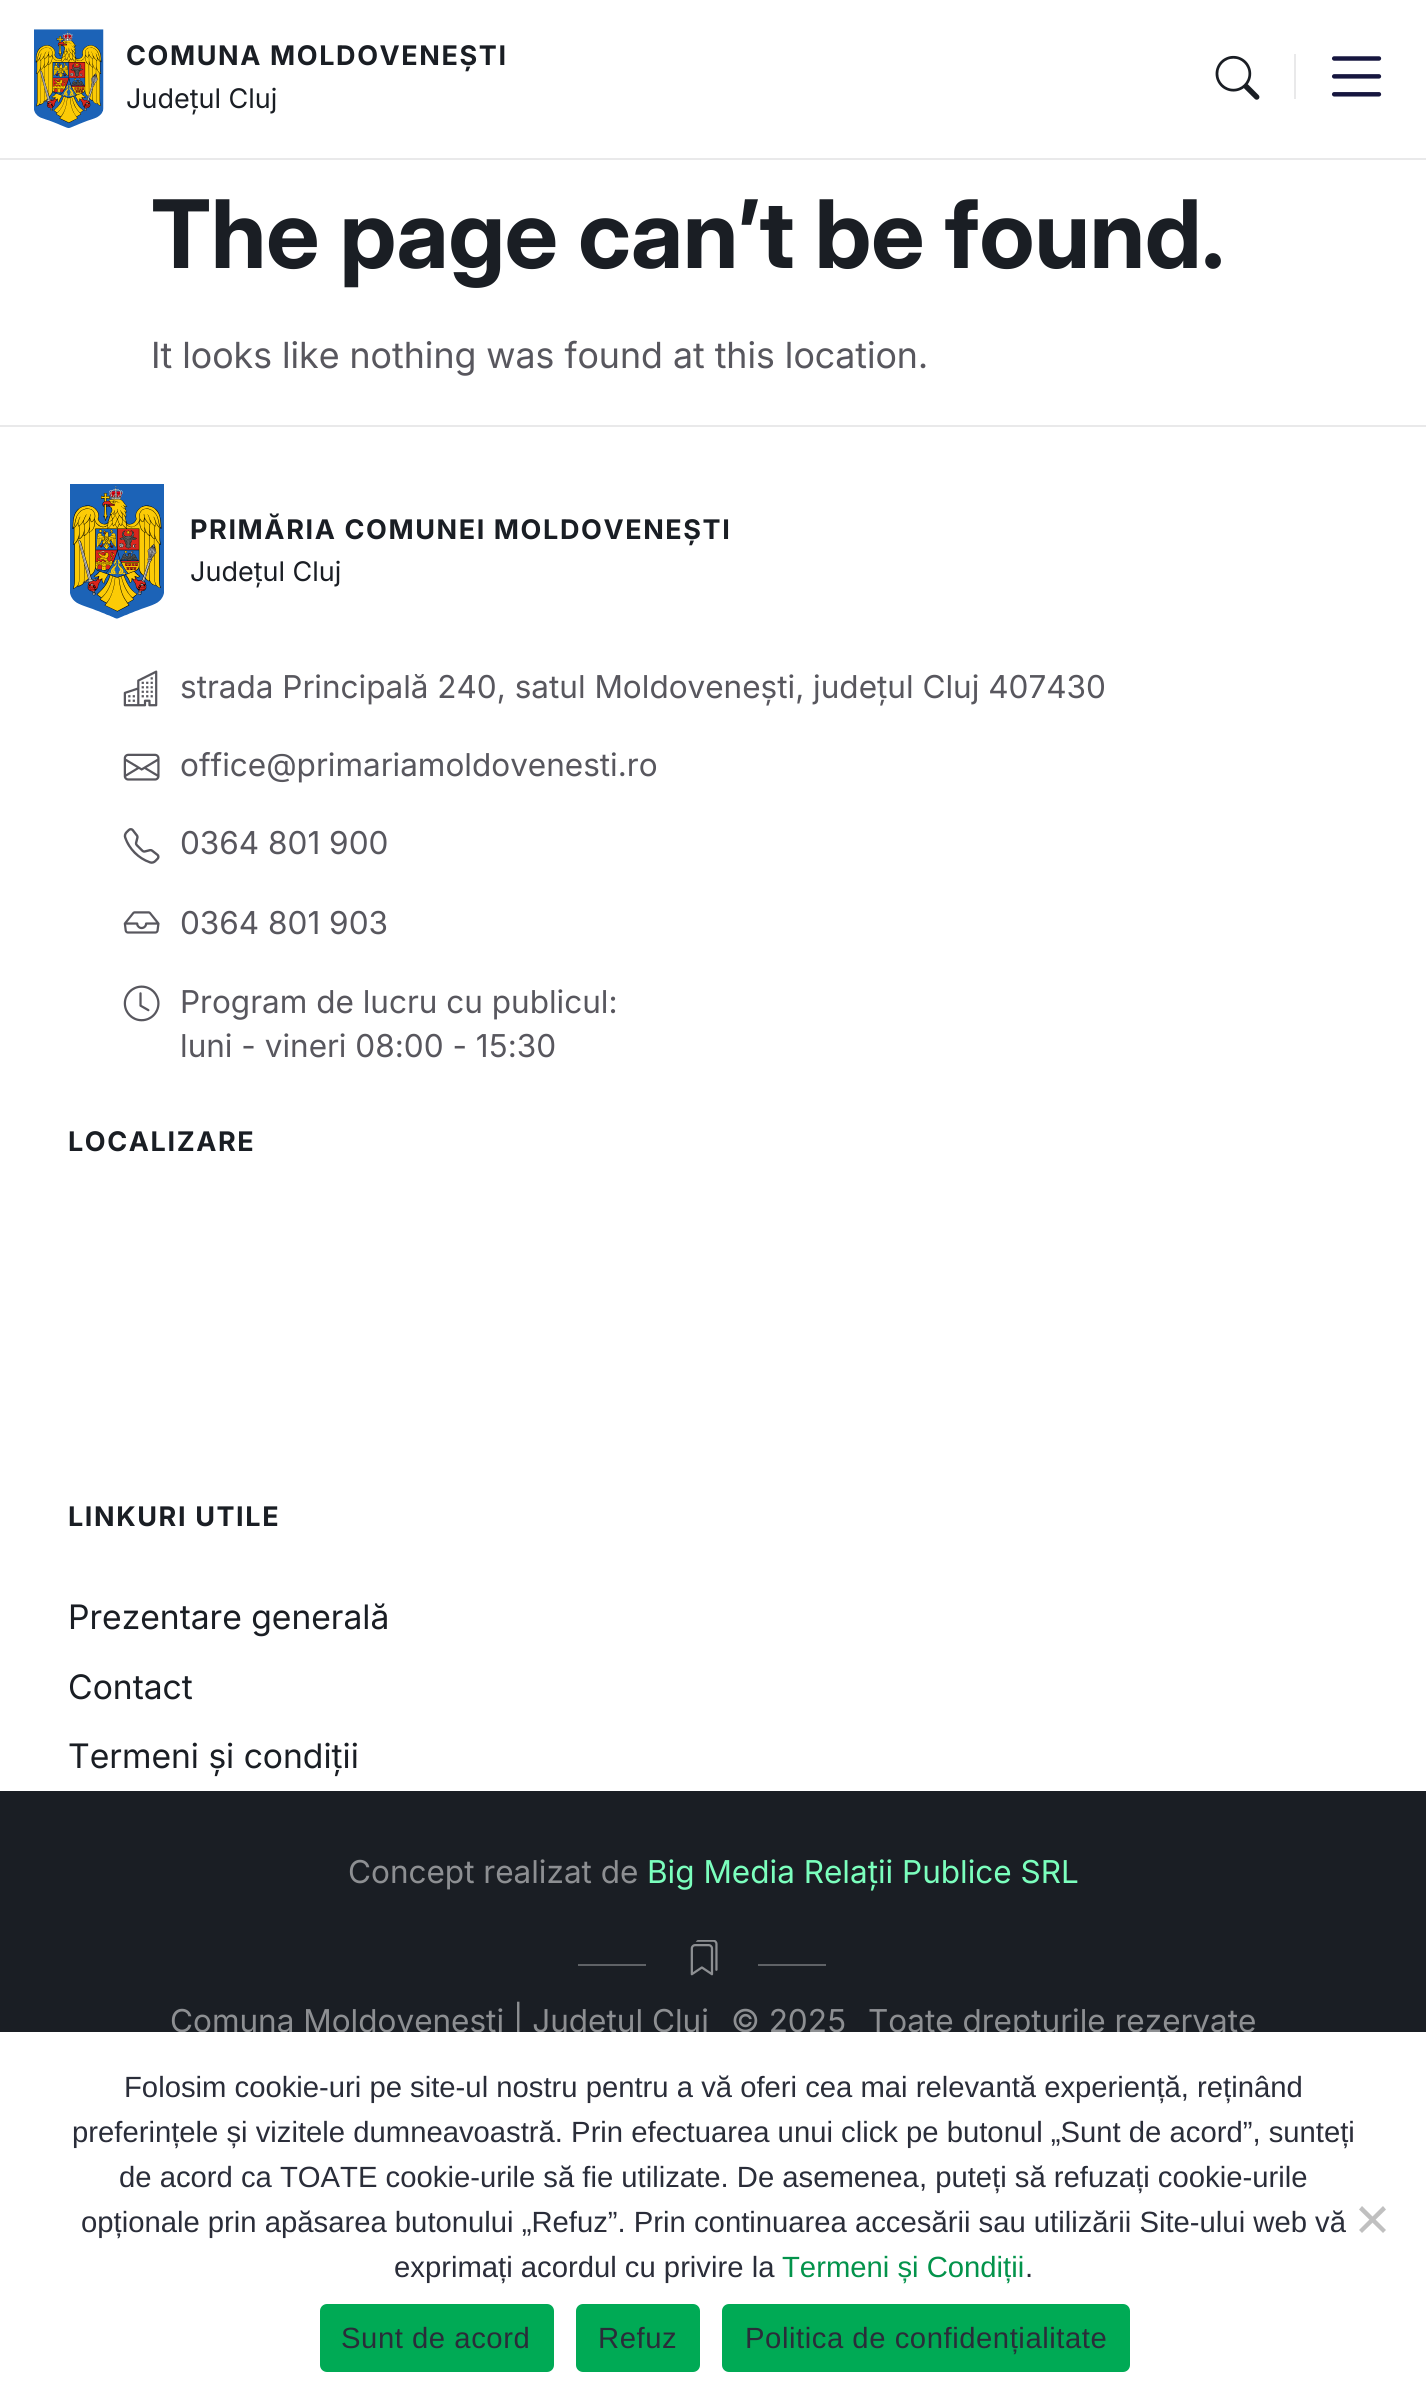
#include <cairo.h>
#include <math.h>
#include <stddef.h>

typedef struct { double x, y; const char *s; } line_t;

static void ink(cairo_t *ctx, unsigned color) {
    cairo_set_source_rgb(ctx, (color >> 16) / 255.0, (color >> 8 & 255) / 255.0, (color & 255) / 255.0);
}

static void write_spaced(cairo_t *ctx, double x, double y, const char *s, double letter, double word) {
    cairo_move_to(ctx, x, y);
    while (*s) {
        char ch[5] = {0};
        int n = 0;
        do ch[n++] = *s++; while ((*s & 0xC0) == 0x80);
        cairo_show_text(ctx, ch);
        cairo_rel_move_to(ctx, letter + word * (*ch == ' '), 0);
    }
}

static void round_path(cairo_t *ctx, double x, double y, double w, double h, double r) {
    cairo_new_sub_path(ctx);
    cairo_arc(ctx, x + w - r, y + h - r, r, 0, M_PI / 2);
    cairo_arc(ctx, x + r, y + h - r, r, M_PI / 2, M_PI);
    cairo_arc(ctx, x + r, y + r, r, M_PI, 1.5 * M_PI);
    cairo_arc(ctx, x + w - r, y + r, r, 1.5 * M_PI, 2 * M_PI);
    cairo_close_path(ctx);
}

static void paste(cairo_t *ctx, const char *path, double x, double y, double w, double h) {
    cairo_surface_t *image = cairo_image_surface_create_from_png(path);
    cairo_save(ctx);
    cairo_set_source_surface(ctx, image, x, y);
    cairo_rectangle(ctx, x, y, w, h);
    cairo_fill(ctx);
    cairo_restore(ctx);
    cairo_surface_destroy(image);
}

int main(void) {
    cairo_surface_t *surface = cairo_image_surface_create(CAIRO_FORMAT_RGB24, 1426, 2405);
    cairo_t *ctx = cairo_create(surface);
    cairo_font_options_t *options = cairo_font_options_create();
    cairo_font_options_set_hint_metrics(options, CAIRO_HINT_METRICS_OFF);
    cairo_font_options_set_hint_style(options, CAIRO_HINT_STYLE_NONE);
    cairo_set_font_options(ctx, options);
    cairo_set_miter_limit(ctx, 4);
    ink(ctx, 0xFFFFFF);
    cairo_paint(ctx);
    ink(ctx, 0xE9E9EA);
    cairo_rectangle(ctx, 0, 158, 1426, 2);
    cairo_fill(ctx);
    paste(ctx, "media/1.png", 34, 29, 70, 99);
    cairo_select_font_face(ctx, "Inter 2", CAIRO_FONT_SLANT_NORMAL, CAIRO_FONT_WEIGHT_BOLD);
    cairo_set_font_size(ctx, 27);
    ink(ctx, 0x1A1E24);
    write_spaced(ctx, 126, 65, "COMUNA MOLDOVENEȘTI", 1.6, 0);
    cairo_select_font_face(ctx, "Inter 2", CAIRO_FONT_SLANT_NORMAL, CAIRO_FONT_WEIGHT_NORMAL);
    cairo_move_to(ctx, 126, 108);
    cairo_show_text(ctx, "Județul Cluj");
    paste(ctx, "media/2.png", 1215, 55, 45, 45);
    ink(ctx, 0xE9E9EA);
    cairo_rectangle(ctx, 1294, 54, 2, 45);
    cairo_fill(ctx);
    paste(ctx, "media/3.png", 1331, 56, 51, 41);
    cairo_select_font_face(ctx, "Inter", CAIRO_FONT_SLANT_NORMAL, CAIRO_FONT_WEIGHT_BOLD);
    cairo_set_font_size(ctx, 94.5);
    ink(ctx, 0x1A1E24);
    cairo_move_to(ctx, 151, 268);
    cairo_show_text(ctx, "The page can’t be found.");
    cairo_select_font_face(ctx, "Inter", CAIRO_FONT_SLANT_NORMAL, CAIRO_FONT_WEIGHT_NORMAL);
    cairo_set_font_size(ctx, 36);
    ink(ctx, 0x58575E);
    cairo_move_to(ctx, 151, 368);
    cairo_show_text(ctx, "It looks like nothing was found at this location.");
    ink(ctx, 0xE9E9EA);
    cairo_rectangle(ctx, 0, 425, 1426, 2);
    cairo_fill(ctx);
    paste(ctx, "media/4.png", 70, 484, 94, 135);
    cairo_select_font_face(ctx, "Inter 2", CAIRO_FONT_SLANT_NORMAL, CAIRO_FONT_WEIGHT_BOLD);
    cairo_set_font_size(ctx, 27);
    ink(ctx, 0x1A1E24);
    write_spaced(ctx, 190, 539, "PRIMĂRIA COMUNEI MOLDOVENEȘTI", 1.6, 0);
    cairo_select_font_face(ctx, "Inter 2", CAIRO_FONT_SLANT_NORMAL, CAIRO_FONT_WEIGHT_NORMAL);
    cairo_move_to(ctx, 190, 581);
    cairo_show_text(ctx, "Județul Cluj");
    paste(ctx, "media/5.png", 123, 670, 35, 37);
    cairo_set_font_size(ctx, 31.5);
    ink(ctx, 0x58575E);
    cairo_move_to(ctx, 180, 698);
    cairo_show_text(ctx, "strada Principală 240, satul Moldovenești, județul Cluj 407430");
    paste(ctx, "media/6.png", 123, 753, 37, 28);
    cairo_move_to(ctx, 180, 776);
    cairo_show_text(ctx, "office@primariamoldovenesti.ro");
    paste(ctx, "media/7.png", 123, 828, 37, 36);
    cairo_move_to(ctx, 180, 854);
    cairo_show_text(ctx, "0364 801 900");
    paste(ctx, "media/8.png", 123, 911, 37, 23);
    cairo_move_to(ctx, 180, 934);
    cairo_show_text(ctx, "0364 801 903");
    paste(ctx, "media/9.png", 123, 985, 37, 37);
    cairo_move_to(ctx, 180, 1013);
    cairo_show_text(ctx, "Program de lucru cu publicul:");
    cairo_move_to(ctx, 180, 1057);
    cairo_show_text(ctx, "luni - vineri 08:00 - 15:30");
    cairo_select_font_face(ctx, "Inter 2", CAIRO_FONT_SLANT_NORMAL, CAIRO_FONT_WEIGHT_BOLD);
    cairo_set_font_size(ctx, 27);
    ink(ctx, 0x1A1E24);
    write_spaced(ctx, 68, 1151, "LOCALIZARE", 1.6, 0);
    write_spaced(ctx, 68, 1526, "LINKURI UTILE", 1.6, 0);
    cairo_select_font_face(ctx, "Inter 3", CAIRO_FONT_SLANT_NORMAL, CAIRO_FONT_WEIGHT_NORMAL);
    cairo_set_font_size(ctx, 33.75);
    {
        static const line_t items[] = {
            {68, 1629, "Prezentare generală"},
            {68, 1699, "Contact"},
            {68, 1768, "Termeni și condiții"},
        };
        for (size_t i = 0; i < sizeof items / sizeof *items; i++) {
            cairo_move_to(ctx, items[i].x, items[i].y);
            cairo_show_text(ctx, items[i].s);
        }
    }
    cairo_rectangle(ctx, 0, 1791, 1426, 241);
    cairo_fill(ctx);
    cairo_select_font_face(ctx, "Inter 2", CAIRO_FONT_SLANT_NORMAL, CAIRO_FONT_WEIGHT_NORMAL);
    cairo_set_font_size(ctx, 31.5);
    ink(ctx, 0x8D8F92);
    cairo_move_to(ctx, 348, 1883);
    cairo_show_text(ctx, "Concept realizat de");
    ink(ctx, 0x7BFFBD);
    cairo_move_to(ctx, 647, 1883);
    cairo_show_text(ctx, "Big Media Relații Publice SRL");
    ink(ctx, 0x5F6266);
    cairo_rectangle(ctx, 578, 1964, 68, 2);
    cairo_fill(ctx);
    paste(ctx, "media/10.png", 690, 1940, 28, 36);
    cairo_rectangle(ctx, 758, 1964, 68, 2);
    cairo_fill(ctx);
    ink(ctx, 0x8D8F92);
    {
        static const line_t items[] = {
            {170, 2032, "Comuna Moldovenești | Județul Cluj"},
            {731, 2032, "© 2025"},
            {868, 2032, "Toate drepturile rezervate"},
        };
        for (size_t i = 0; i < sizeof items / sizeof *items; i++) {
            cairo_move_to(ctx, items[i].x, items[i].y);
            cairo_show_text(ctx, items[i].s);
        }
    }
    ink(ctx, 0xFFFFFF);
    cairo_rectangle(ctx, 179, 2032, 1072, 8);
    cairo_fill(ctx);
    cairo_select_font_face(ctx, "Liberation Sans", CAIRO_FONT_SLANT_NORMAL, CAIRO_FONT_WEIGHT_NORMAL);
    cairo_set_font_size(ctx, 29.25);
    ink(ctx, 0x2A2D39);
    {
        static const line_t items[] = {
            {124, 2097, "Folosim cookie-uri pe site-ul nostru pentru a vă oferi cea mai relevantă experiență, reținând"},
            {72, 2142, "preferințele și vizitele dumneavoastră. Prin efectuarea unui click pe butonul „Sunt de acord”, sunteți"},
            {119, 2187, "de acord ca TOATE cookie-urile să fie utilizate. De asemenea, puteți să refuzați cookie-urile"},
            {81, 2232, "opționale prin apăsarea butonului „Refuz”. Prin continuarea accesării sau utilizării Site-ului web vă"},
            {394, 2277, "exprimați acordul cu privire la"},
        };
        for (size_t i = 0; i < sizeof items / sizeof *items; i++) {
            cairo_move_to(ctx, items[i].x, items[i].y);
            cairo_show_text(ctx, items[i].s);
        }
    }
    ink(ctx, 0x03934B);
    cairo_move_to(ctx, 782, 2277);
    cairo_show_text(ctx, "Termeni și Condiții");
    ink(ctx, 0x2A2D39);
    cairo_move_to(ctx, 1025, 2277);
    cairo_show_text(ctx, ".");
    ink(ctx, 0xC0C0C0);
    cairo_new_path(ctx);
    cairo_move_to(ctx, 1383, 2206);
    cairo_line_to(ctx, 1386, 2209.5);
    cairo_line_to(ctx, 1362, 2233);
    cairo_line_to(ctx, 1359, 2230);
    cairo_close_path(ctx);
    cairo_fill(ctx);
    cairo_new_path(ctx);
    cairo_move_to(ctx, 1359, 2209.5);
    cairo_line_to(ctx, 1362, 2206);
    cairo_line_to(ctx, 1386, 2230);
    cairo_line_to(ctx, 1383, 2233);
    cairo_close_path(ctx);
    cairo_fill(ctx);
    ink(ctx, 0x00AA55);
    round_path(ctx, 320, 2304, 234, 68, 7);
    cairo_fill(ctx);
    ink(ctx, 0x2A2D39);
    write_spaced(ctx, 341, 2348, "Sunt de acord", 0.55, 0);
    ink(ctx, 0x00AA55);
    round_path(ctx, 576, 2304, 124, 68, 7);
    cairo_fill(ctx);
    ink(ctx, 0x2A2D39);
    write_spaced(ctx, 598, 2348, "Refuz", 0.55, 0);
    ink(ctx, 0x00AA55);
    round_path(ctx, 722, 2304, 408, 68, 7);
    cairo_fill(ctx);
    ink(ctx, 0x2A2D39);
    write_spaced(ctx, 745, 2348, "Politica de confidențialitate", 0.55, 0);
    cairo_surface_write_to_png(surface, "image.png");
    cairo_font_options_destroy(options);
    cairo_destroy(ctx);
    cairo_surface_destroy(surface);
    return 0;
}
